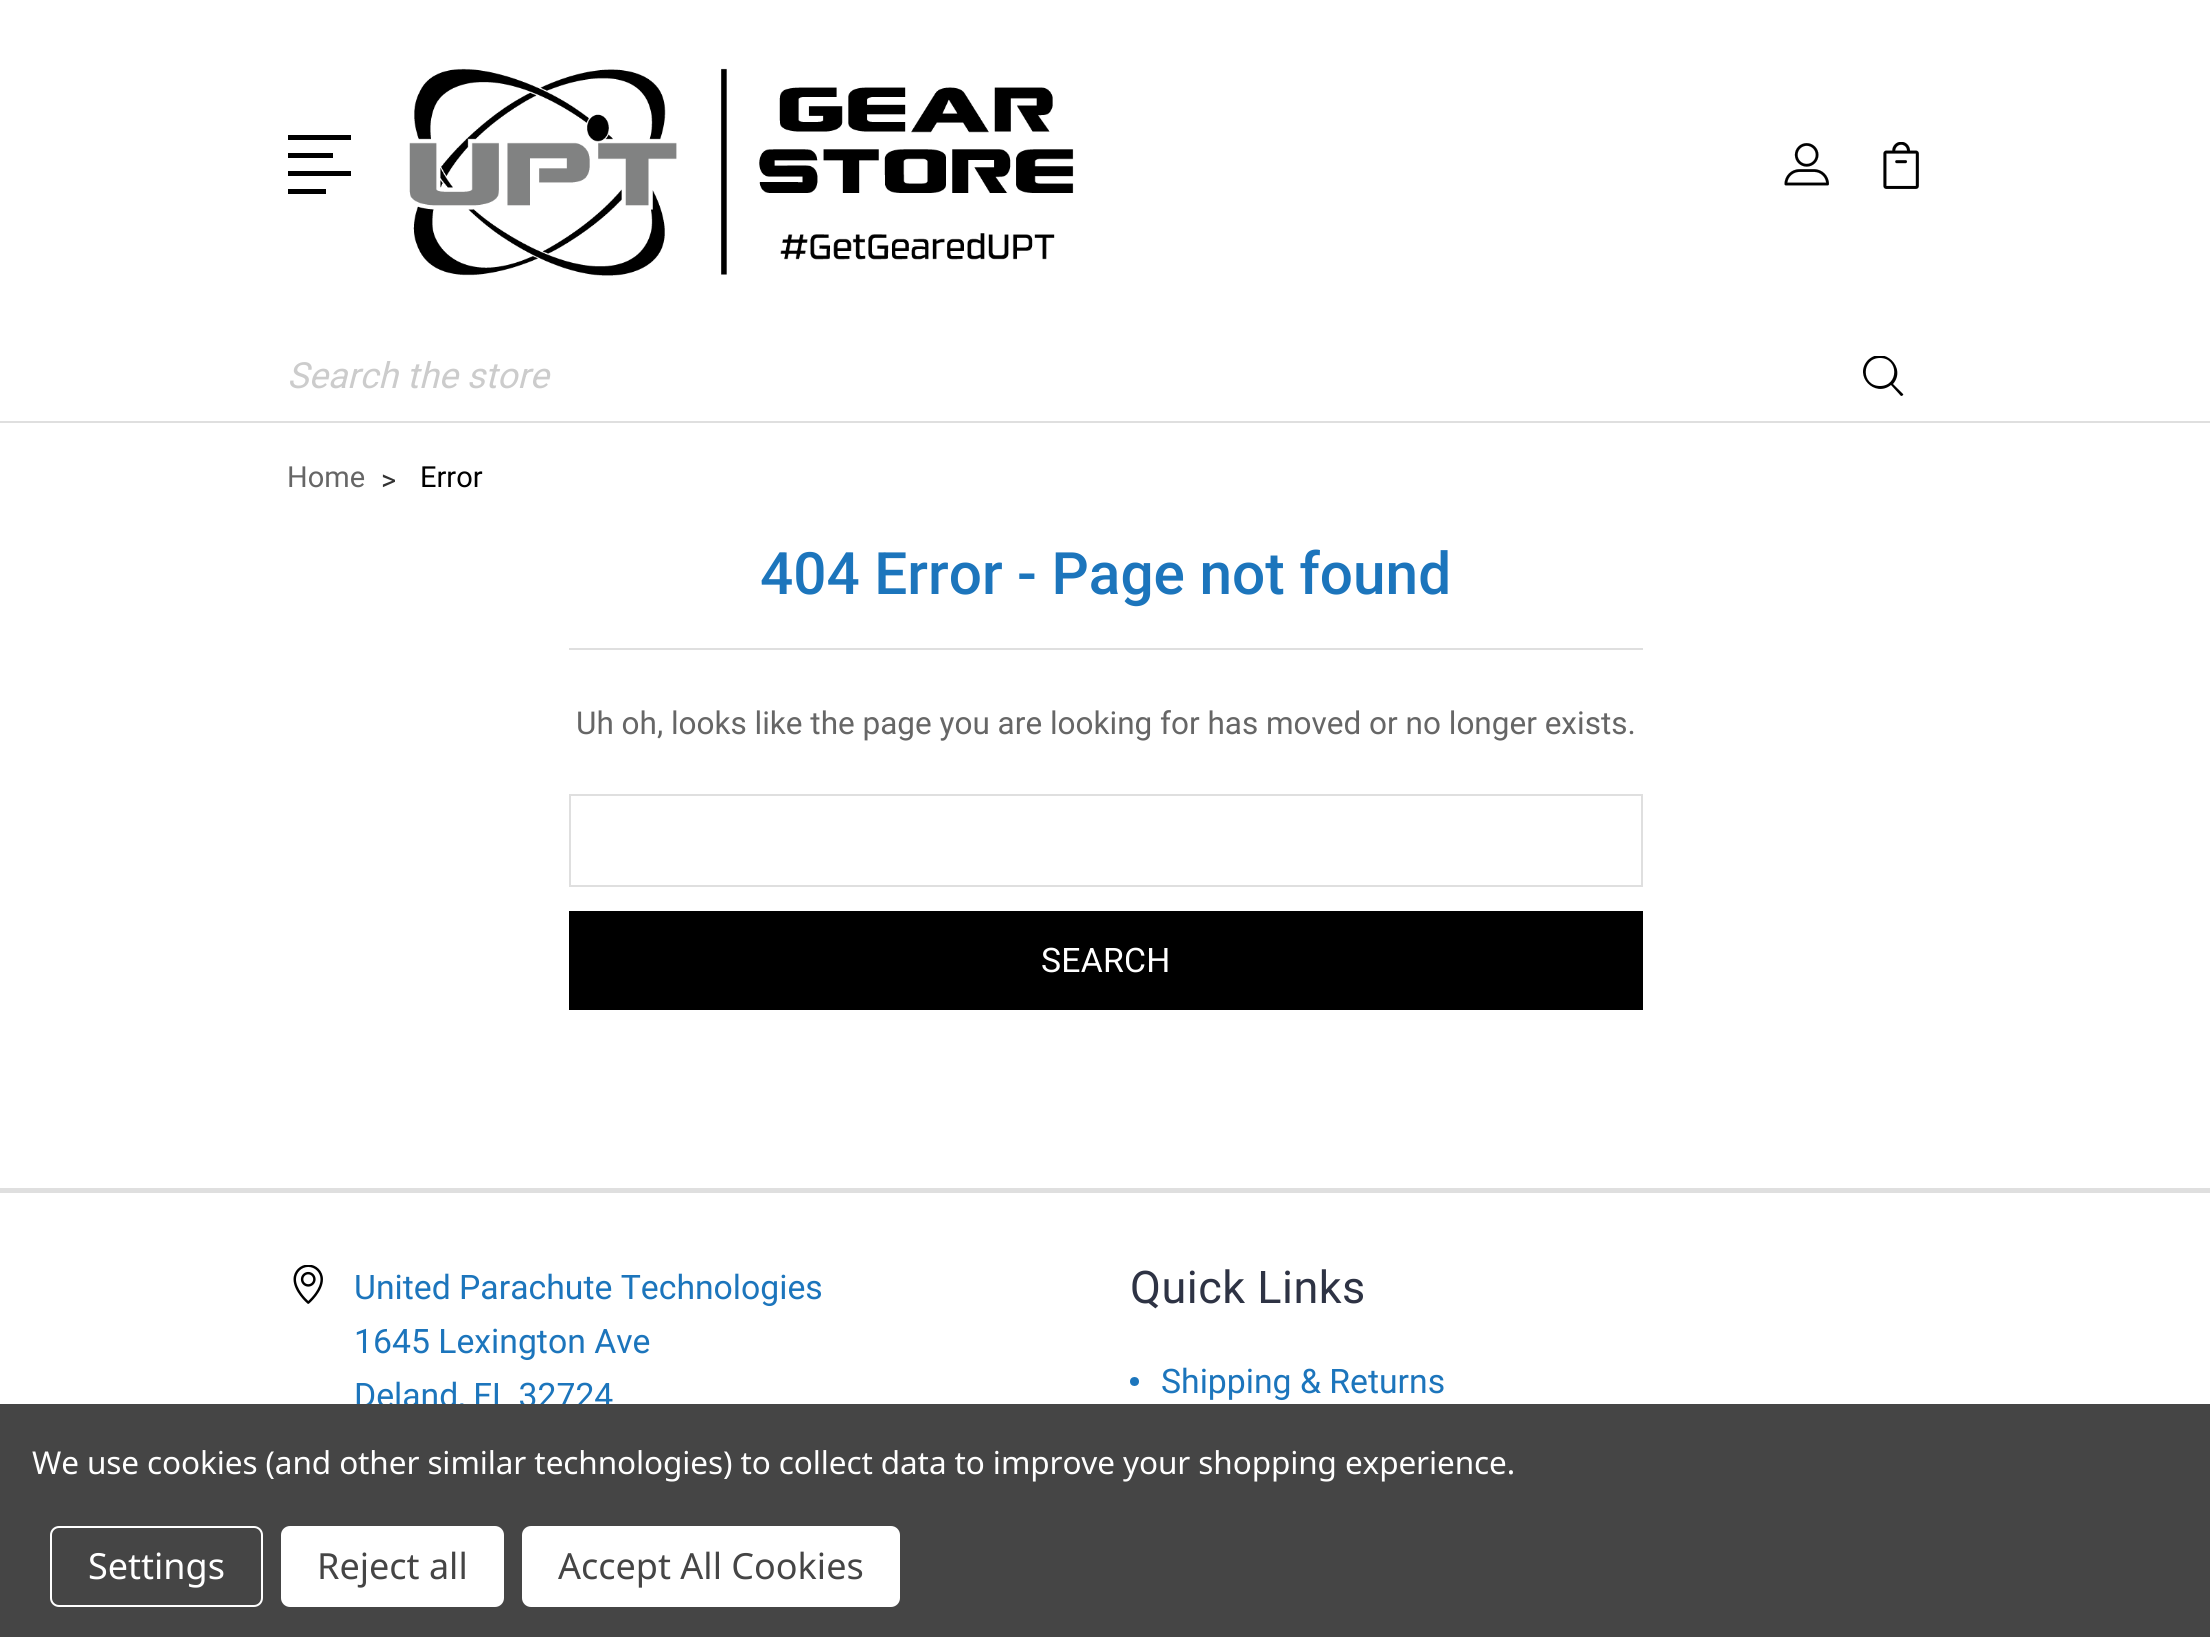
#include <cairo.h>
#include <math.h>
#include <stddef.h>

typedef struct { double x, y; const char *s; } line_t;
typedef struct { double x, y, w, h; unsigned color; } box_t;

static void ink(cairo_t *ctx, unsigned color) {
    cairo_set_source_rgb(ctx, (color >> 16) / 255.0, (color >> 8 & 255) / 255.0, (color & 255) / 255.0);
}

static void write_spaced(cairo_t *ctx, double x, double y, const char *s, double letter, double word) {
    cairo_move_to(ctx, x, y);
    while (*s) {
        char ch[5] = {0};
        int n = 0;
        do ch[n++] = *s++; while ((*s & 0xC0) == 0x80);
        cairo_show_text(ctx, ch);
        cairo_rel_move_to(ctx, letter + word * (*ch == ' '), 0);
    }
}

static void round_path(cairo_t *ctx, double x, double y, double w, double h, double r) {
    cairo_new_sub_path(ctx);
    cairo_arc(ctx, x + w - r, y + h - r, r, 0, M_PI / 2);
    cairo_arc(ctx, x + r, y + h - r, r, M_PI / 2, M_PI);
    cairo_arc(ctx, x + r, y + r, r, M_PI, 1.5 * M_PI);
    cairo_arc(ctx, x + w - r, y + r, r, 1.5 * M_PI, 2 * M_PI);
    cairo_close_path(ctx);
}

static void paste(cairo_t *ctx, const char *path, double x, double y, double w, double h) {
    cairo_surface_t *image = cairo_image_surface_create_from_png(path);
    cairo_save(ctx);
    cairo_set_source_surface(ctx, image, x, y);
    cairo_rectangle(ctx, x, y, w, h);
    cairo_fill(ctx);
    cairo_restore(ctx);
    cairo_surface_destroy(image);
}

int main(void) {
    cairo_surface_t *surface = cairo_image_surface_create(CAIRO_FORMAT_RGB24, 2210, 1637);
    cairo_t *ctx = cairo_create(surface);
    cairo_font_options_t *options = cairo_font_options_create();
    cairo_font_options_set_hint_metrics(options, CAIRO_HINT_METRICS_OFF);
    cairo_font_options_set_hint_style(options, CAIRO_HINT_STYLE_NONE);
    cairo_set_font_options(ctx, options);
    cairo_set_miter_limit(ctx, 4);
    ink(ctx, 0xFFFFFF);
    cairo_paint(ctx);
    {
        static const box_t items[] = {
            {288, 135, 63, 5, 0x000000},
            {288, 153, 45, 5, 0x000000},
            {288, 171, 63, 5, 0x000000},
            {288, 189, 38, 5, 0x000000},
        };
        for (size_t i = 0; i < sizeof items / sizeof *items; i++) {
            ink(ctx, items[i].color);
            cairo_rectangle(ctx, items[i].x, items[i].y, items[i].w, items[i].h);
            cairo_fill(ctx);
        }
    }
    paste(ctx, "media/1.png", 409, 68, 665, 208);
    paste(ctx, "media/2.png", 1784, 143, 45, 43);
    paste(ctx, "media/3.png", 1883, 142, 36, 47);
    ink(ctx, 0xDFDFDF);
    cairo_rectangle(ctx, 0, 421, 2210, 2);
    cairo_fill(ctx);
    cairo_select_font_face(ctx, "Roboto", CAIRO_FONT_SLANT_ITALIC, CAIRO_FONT_WEIGHT_NORMAL);
    cairo_set_font_size(ctx, 36);
    ink(ctx, 0xCCCCCC);
    cairo_move_to(ctx, 287, 388);
    cairo_show_text(ctx, "Search the store");
    cairo_save(ctx);
    cairo_rectangle(ctx, 1863, 356, 41, 40);
    cairo_clip(ctx);
    ink(ctx, 0x000000);
    cairo_new_path(ctx);
    cairo_move_to(ctx, 1880, 386);
    cairo_curve_to(ctx, 1861, 386, 1861, 358, 1880, 358);
    cairo_curve_to(ctx, 1899, 358, 1899, 386, 1880, 386);
    cairo_close_path(ctx);
    cairo_move_to(ctx, 1903, 394);
    cairo_line_to(ctx, 1893, 384);
    cairo_curve_to(ctx, 1907, 368, 1884, 345, 1868, 360);
    cairo_curve_to(ctx, 1853, 376, 1875, 398, 1891, 385);
    cairo_line_to(ctx, 1901, 396);
    cairo_curve_to(ctx, 1902, 396, 1904, 395, 1903, 394);
    cairo_close_path(ctx);
    cairo_fill(ctx);
    cairo_restore(ctx);
    cairo_select_font_face(ctx, "Roboto", CAIRO_FONT_SLANT_NORMAL, CAIRO_FONT_WEIGHT_NORMAL);
    cairo_set_font_size(ctx, 29);
    ink(ctx, 0x666666);
    cairo_move_to(ctx, 287, 487);
    cairo_show_text(ctx, "Home");
    ink(ctx, 0x333333);
    cairo_move_to(ctx, 381, 490);
    cairo_show_text(ctx, ">");
    ink(ctx, 0x000000);
    cairo_move_to(ctx, 420, 487);
    cairo_show_text(ctx, "Error");
    ink(ctx, 0xDFDFDF);
    cairo_rectangle(ctx, 569, 648, 1074, 2);
    cairo_fill(ctx);
    cairo_select_font_face(ctx, "Roboto Medium", CAIRO_FONT_SLANT_NORMAL, CAIRO_FONT_WEIGHT_NORMAL);
    cairo_set_font_size(ctx, 58.5);
    ink(ctx, 0x1C75BC);
    cairo_move_to(ctx, 760, 594);
    cairo_show_text(ctx, "404 Error - Page not found");
    cairo_select_font_face(ctx, "Roboto", CAIRO_FONT_SLANT_NORMAL, CAIRO_FONT_WEIGHT_NORMAL);
    cairo_set_font_size(ctx, 31.5);
    ink(ctx, 0x666666);
    cairo_move_to(ctx, 576, 734);
    cairo_show_text(ctx, "Uh oh, looks like the page you are looking for has moved or no longer exists.");
    cairo_rectangle(ctx, 570, 795, 1072, 91);
    ink(ctx, 0xDFDFDF);
    cairo_stroke(ctx);
    ink(ctx, 0x000000);
    cairo_rectangle(ctx, 569, 911, 1074, 99);
    cairo_fill(ctx);
    cairo_set_font_size(ctx, 33.75);
    ink(ctx, 0xFFFFFF);
    write_spaced(ctx, 1041, 972, "SEARCH", 0.25, 0);
    ink(ctx, 0xDFDFDF);
    cairo_rectangle(ctx, 0, 1188, 2210, 5);
    cairo_fill(ctx);
    paste(ctx, "media/4.png", 293, 1265, 30, 39);
    ink(ctx, 0x1C75BC);
    {
        static const line_t items[] = {
            {354, 1299, "United Parachute Technologies"},
            {354, 1353, "1645 Lexington Ave"},
            {354, 1407, "Deland, FL 32724"},
        };
        for (size_t i = 0; i < sizeof items / sizeof *items; i++) {
            cairo_move_to(ctx, items[i].x, items[i].y);
            cairo_show_text(ctx, items[i].s);
        }
    }
    cairo_set_font_size(ctx, 45);
    ink(ctx, 0x2E3344);
    write_spaced(ctx, 1130, 1303, "Quick Links", 0.5, 0);
    ink(ctx, 0x1C75BC);
    cairo_new_path(ctx);
    cairo_arc(ctx, 1134.5, 1381.5, 4.5, 0, 2 * M_PI);
    cairo_fill(ctx);
    cairo_set_font_size(ctx, 33.75);
    cairo_move_to(ctx, 1161, 1393);
    cairo_show_text(ctx, "Shipping & Returns");
    ink(ctx, 0x454545);
    cairo_rectangle(ctx, 0, 1404, 2210, 233);
    cairo_fill(ctx);
    cairo_select_font_face(ctx, "Noto Sans", CAIRO_FONT_SLANT_NORMAL, CAIRO_FONT_WEIGHT_NORMAL);
    cairo_set_font_size(ctx, 31.5);
    ink(ctx, 0xFFFFFF);
    write_spaced(ctx, 32, 1474, "We use cookies (and other similar technologies) to collect data to improve your shopping experience.", -0.1, 0);
    round_path(ctx, 51, 1527, 211, 79, 8);
    cairo_stroke(ctx);
    cairo_set_font_size(ctx, 36);
    cairo_move_to(ctx, 88, 1579);
    cairo_show_text(ctx, "Settings");
    round_path(ctx, 281, 1526, 223, 81, 9);
    cairo_fill(ctx);
    ink(ctx, 0x454545);
    cairo_move_to(ctx, 317, 1579);
    cairo_show_text(ctx, "Reject all");
    ink(ctx, 0xFFFFFF);
    round_path(ctx, 522, 1526, 378, 81, 9);
    cairo_fill(ctx);
    ink(ctx, 0x454545);
    cairo_move_to(ctx, 558, 1579);
    cairo_show_text(ctx, "Accept All Cookies");
    cairo_surface_write_to_png(surface, "image.png");
    cairo_font_options_destroy(options);
    cairo_destroy(ctx);
    cairo_surface_destroy(surface);
    return 0;
}
